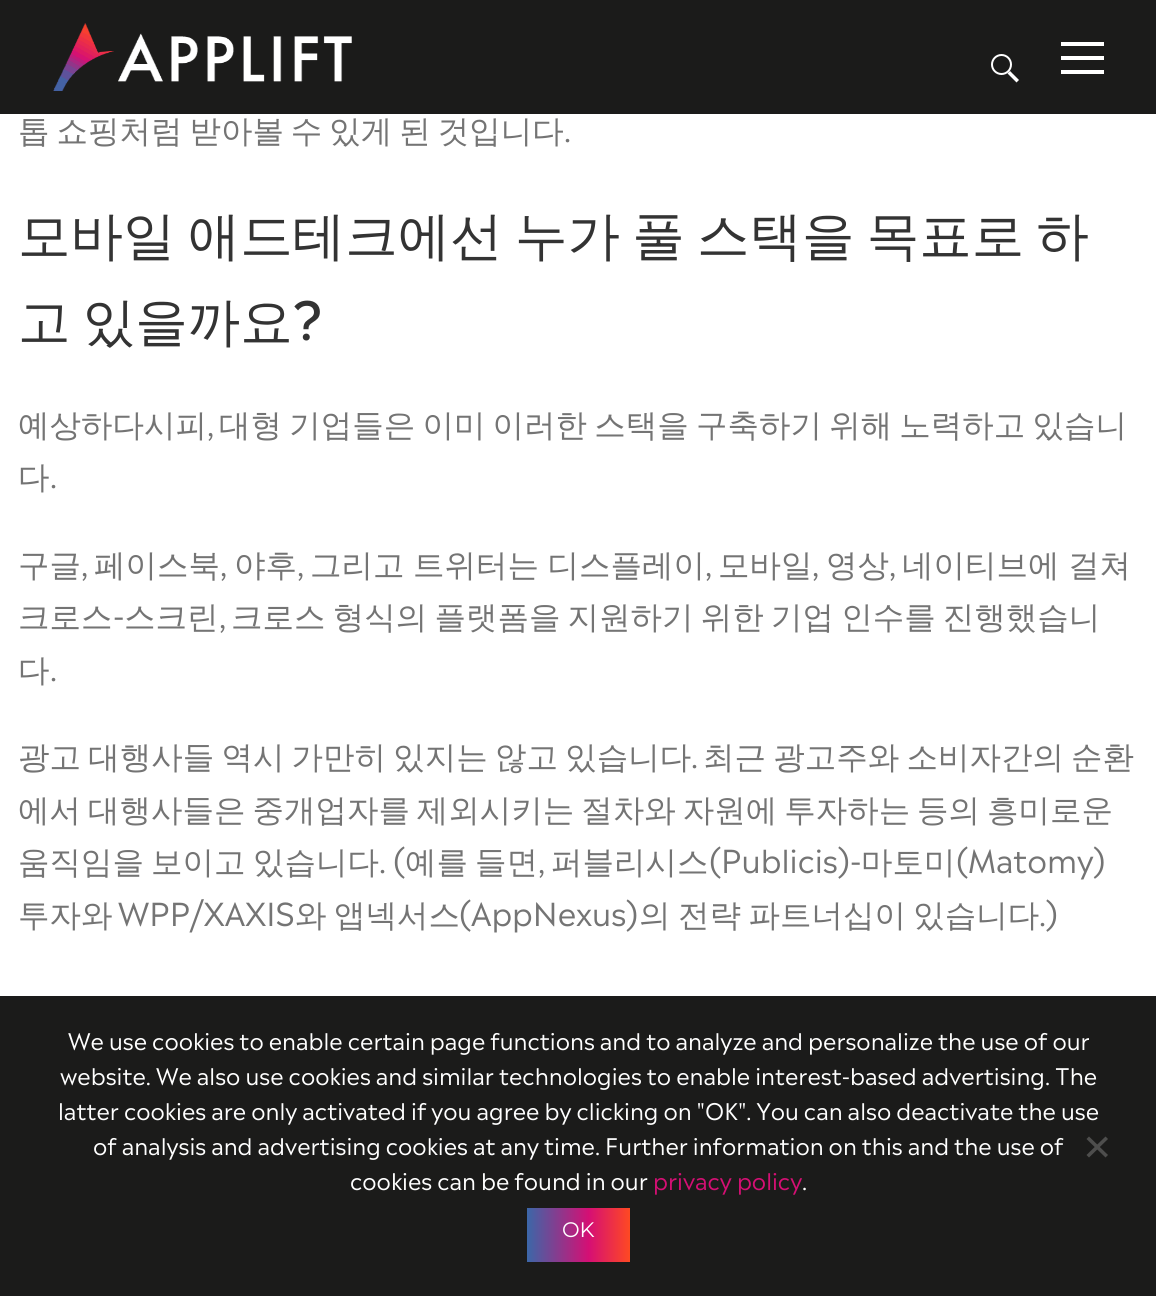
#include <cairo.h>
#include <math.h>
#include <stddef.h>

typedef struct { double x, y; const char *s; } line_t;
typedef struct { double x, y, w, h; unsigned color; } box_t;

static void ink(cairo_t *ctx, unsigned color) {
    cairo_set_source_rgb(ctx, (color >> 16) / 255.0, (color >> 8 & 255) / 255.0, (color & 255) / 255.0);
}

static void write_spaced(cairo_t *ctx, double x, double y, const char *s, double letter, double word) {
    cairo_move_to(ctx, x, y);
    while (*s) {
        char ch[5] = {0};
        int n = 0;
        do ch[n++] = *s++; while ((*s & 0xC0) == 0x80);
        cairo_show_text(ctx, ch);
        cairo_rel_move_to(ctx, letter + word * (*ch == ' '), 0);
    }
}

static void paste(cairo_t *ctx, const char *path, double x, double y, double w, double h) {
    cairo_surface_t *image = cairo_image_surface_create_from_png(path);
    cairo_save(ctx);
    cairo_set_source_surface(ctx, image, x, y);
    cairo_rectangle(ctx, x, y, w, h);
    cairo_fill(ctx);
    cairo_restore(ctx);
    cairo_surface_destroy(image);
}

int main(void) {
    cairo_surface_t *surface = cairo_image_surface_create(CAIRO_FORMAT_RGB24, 1156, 1296);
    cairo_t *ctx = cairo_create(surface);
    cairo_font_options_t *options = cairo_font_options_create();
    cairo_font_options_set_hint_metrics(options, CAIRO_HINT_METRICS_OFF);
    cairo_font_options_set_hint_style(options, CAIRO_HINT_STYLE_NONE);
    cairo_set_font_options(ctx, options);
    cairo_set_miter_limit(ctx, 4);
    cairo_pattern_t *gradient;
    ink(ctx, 0xFFFFFF);
    cairo_paint(ctx);
    ink(ctx, 0x1B1B1A);
    cairo_rectangle(ctx, 0, 0, 1156, 114);
    cairo_fill(ctx);
    paste(ctx, "media/1.png", 53, 23, 299, 68);
    ink(ctx, 0xFFFFFF);
    cairo_new_path(ctx);
    cairo_move_to(ctx, 1007.5, 73.5);
    cairo_line_to(ctx, 1010, 71);
    cairo_line_to(ctx, 1019, 80);
    cairo_line_to(ctx, 1016.5, 82.5);
    cairo_close_path(ctx);
    cairo_fill(ctx);
    cairo_arc(ctx, 1001.5, 64.5, 9.5, 0, 2 * M_PI);
    cairo_stroke(ctx);
    {
        static const box_t items[] = {
            {1061, 42, 43, 4, 0xFFFFFF},
            {1061, 56, 43, 4, 0xFFFFFF},
            {1061, 70, 43, 4, 0xFFFFFF},
        };
        for (size_t i = 0; i < sizeof items / sizeof *items; i++) {
            ink(ctx, items[i].color);
            cairo_rectangle(ctx, items[i].x, items[i].y, items[i].w, items[i].h);
            cairo_fill(ctx);
        }
    }
    cairo_select_font_face(ctx, "WenQuanYi Zen Hei Medium", CAIRO_FONT_SLANT_NORMAL, CAIRO_FONT_WEIGHT_NORMAL);
    cairo_set_font_size(ctx, 31.5);
    ink(ctx, 0x747474);
    write_spaced(ctx, 18, 142, "톱 쇼핑처럼 받아볼 수 있게 된 것입니다", 0, -2.5);
    cairo_select_font_face(ctx, "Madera", CAIRO_FONT_SLANT_NORMAL, CAIRO_FONT_WEIGHT_NORMAL);
    cairo_move_to(ctx, 564, 142);
    cairo_show_text(ctx, ".");
    cairo_select_font_face(ctx, "WenQuanYi Zen Hei Medium", CAIRO_FONT_SLANT_NORMAL, CAIRO_FONT_WEIGHT_NORMAL);
    cairo_set_font_size(ctx, 52.5);
    ink(ctx, 0x333333);
    write_spaced(ctx, 18, 254, "모바일 애드테크에선 누가 풀 스택을 목표로 하", 0, -3.5);
    write_spaced(ctx, 18, 340, "고 있을까요", 0, -3.5);
    cairo_select_font_face(ctx, "Madera Medium", CAIRO_FONT_SLANT_NORMAL, CAIRO_FONT_WEIGHT_NORMAL);
    cairo_move_to(ctx, 293, 340);
    cairo_show_text(ctx, "?");
    cairo_select_font_face(ctx, "WenQuanYi Zen Hei Medium", CAIRO_FONT_SLANT_NORMAL, CAIRO_FONT_WEIGHT_NORMAL);
    cairo_set_font_size(ctx, 31.5);
    ink(ctx, 0x747474);
    cairo_move_to(ctx, 18, 436);
    cairo_show_text(ctx, "예상하다시피");
    cairo_select_font_face(ctx, "Madera", CAIRO_FONT_SLANT_NORMAL, CAIRO_FONT_WEIGHT_NORMAL);
    cairo_move_to(ctx, 207, 436);
    cairo_show_text(ctx, ",");
    cairo_select_font_face(ctx, "WenQuanYi Zen Hei Medium", CAIRO_FONT_SLANT_NORMAL, CAIRO_FONT_WEIGHT_NORMAL);
    write_spaced(ctx, 219, 436, "대형 기업들은 이미 이러한 스택을 구축하기 위해 노력하고 있습니", 0, -2.25);
    cairo_move_to(ctx, 18, 488);
    cairo_show_text(ctx, "다");
    cairo_select_font_face(ctx, "Madera", CAIRO_FONT_SLANT_NORMAL, CAIRO_FONT_WEIGHT_NORMAL);
    cairo_move_to(ctx, 50, 488);
    cairo_show_text(ctx, ".");
    cairo_select_font_face(ctx, "WenQuanYi Zen Hei Medium", CAIRO_FONT_SLANT_NORMAL, CAIRO_FONT_WEIGHT_NORMAL);
    cairo_move_to(ctx, 18, 576);
    cairo_show_text(ctx, "구글");
    cairo_select_font_face(ctx, "Madera", CAIRO_FONT_SLANT_NORMAL, CAIRO_FONT_WEIGHT_NORMAL);
    cairo_move_to(ctx, 81, 576);
    cairo_show_text(ctx, ",");
    cairo_select_font_face(ctx, "WenQuanYi Zen Hei Medium", CAIRO_FONT_SLANT_NORMAL, CAIRO_FONT_WEIGHT_NORMAL);
    cairo_move_to(ctx, 94, 576);
    cairo_show_text(ctx, "페이스북");
    cairo_select_font_face(ctx, "Madera", CAIRO_FONT_SLANT_NORMAL, CAIRO_FONT_WEIGHT_NORMAL);
    cairo_move_to(ctx, 220, 576);
    cairo_show_text(ctx, ",");
    cairo_select_font_face(ctx, "WenQuanYi Zen Hei Medium", CAIRO_FONT_SLANT_NORMAL, CAIRO_FONT_WEIGHT_NORMAL);
    cairo_move_to(ctx, 234, 576);
    cairo_show_text(ctx, "야후");
    cairo_select_font_face(ctx, "Madera", CAIRO_FONT_SLANT_NORMAL, CAIRO_FONT_WEIGHT_NORMAL);
    cairo_move_to(ctx, 297, 576);
    cairo_show_text(ctx, ",");
    cairo_select_font_face(ctx, "WenQuanYi Zen Hei Medium", CAIRO_FONT_SLANT_NORMAL, CAIRO_FONT_WEIGHT_NORMAL);
    write_spaced(ctx, 310, 576, "그리고 트위터는 디스플레이", 0, -1);
    cairo_select_font_face(ctx, "Madera", CAIRO_FONT_SLANT_NORMAL, CAIRO_FONT_WEIGHT_NORMAL);
    cairo_move_to(ctx, 705, 576);
    cairo_show_text(ctx, ",");
    cairo_select_font_face(ctx, "WenQuanYi Zen Hei Medium", CAIRO_FONT_SLANT_NORMAL, CAIRO_FONT_WEIGHT_NORMAL);
    cairo_move_to(ctx, 718, 576);
    cairo_show_text(ctx, "모바일");
    cairo_select_font_face(ctx, "Madera", CAIRO_FONT_SLANT_NORMAL, CAIRO_FONT_WEIGHT_NORMAL);
    cairo_move_to(ctx, 812, 576);
    cairo_show_text(ctx, ",");
    cairo_select_font_face(ctx, "WenQuanYi Zen Hei Medium", CAIRO_FONT_SLANT_NORMAL, CAIRO_FONT_WEIGHT_NORMAL);
    cairo_move_to(ctx, 826, 576);
    cairo_show_text(ctx, "영상");
    cairo_select_font_face(ctx, "Madera", CAIRO_FONT_SLANT_NORMAL, CAIRO_FONT_WEIGHT_NORMAL);
    cairo_move_to(ctx, 889, 576);
    cairo_show_text(ctx, ",");
    cairo_select_font_face(ctx, "WenQuanYi Zen Hei Medium", CAIRO_FONT_SLANT_NORMAL, CAIRO_FONT_WEIGHT_NORMAL);
    write_spaced(ctx, 902, 576, "네이티브에 걸쳐", 0, -1);
    cairo_move_to(ctx, 18, 628);
    cairo_show_text(ctx, "크로스");
    cairo_select_font_face(ctx, "Madera", CAIRO_FONT_SLANT_NORMAL, CAIRO_FONT_WEIGHT_NORMAL);
    cairo_move_to(ctx, 113, 628);
    cairo_show_text(ctx, "-");
    cairo_select_font_face(ctx, "WenQuanYi Zen Hei Medium", CAIRO_FONT_SLANT_NORMAL, CAIRO_FONT_WEIGHT_NORMAL);
    cairo_move_to(ctx, 124, 628);
    cairo_show_text(ctx, "스크린");
    write_spaced(ctx, 231, 628, "크로스 형식의 플랫폼을 지원하기 위한 기업 인수를 진행했습니", 0, -2.25);
    cairo_select_font_face(ctx, "Madera", CAIRO_FONT_SLANT_NORMAL, CAIRO_FONT_WEIGHT_NORMAL);
    cairo_move_to(ctx, 219, 628);
    cairo_show_text(ctx, ",");
    cairo_select_font_face(ctx, "WenQuanYi Zen Hei Medium", CAIRO_FONT_SLANT_NORMAL, CAIRO_FONT_WEIGHT_NORMAL);
    cairo_move_to(ctx, 18, 681);
    cairo_show_text(ctx, "다");
    cairo_select_font_face(ctx, "Madera", CAIRO_FONT_SLANT_NORMAL, CAIRO_FONT_WEIGHT_NORMAL);
    cairo_move_to(ctx, 50, 681);
    cairo_show_text(ctx, ".");
    cairo_select_font_face(ctx, "WenQuanYi Zen Hei Medium", CAIRO_FONT_SLANT_NORMAL, CAIRO_FONT_WEIGHT_NORMAL);
    write_spaced(ctx, 18, 768, "광고 대행사들 역시 가만히 있지는 않고 있습니다", 0, -2.25);
    cairo_select_font_face(ctx, "Madera", CAIRO_FONT_SLANT_NORMAL, CAIRO_FONT_WEIGHT_NORMAL);
    cairo_move_to(ctx, 691, 768);
    cairo_show_text(ctx, ".");
    cairo_select_font_face(ctx, "WenQuanYi Zen Hei Medium", CAIRO_FONT_SLANT_NORMAL, CAIRO_FONT_WEIGHT_NORMAL);
    write_spaced(ctx, 703, 768, "최근 광고주와 소비자간의 순환", 0, -2.25);
    write_spaced(ctx, 18, 821, "에서 대행사들은 중개업자를 제외시키는 절차와 자원에 투자하는 등의 흥미로운", 0, -2.5);
    {
        static const line_t items[] = {
            {18, 873, "움직임을"},
            {151, 873, "보이고"},
            {253, 873, "있습니다"},
        };
        for (size_t i = 0; i < sizeof items / sizeof *items; i++) {
            cairo_move_to(ctx, items[i].x, items[i].y);
            cairo_show_text(ctx, items[i].s);
        }
    }
    cairo_select_font_face(ctx, "Madera", CAIRO_FONT_SLANT_NORMAL, CAIRO_FONT_WEIGHT_NORMAL);
    cairo_move_to(ctx, 379, 873);
    cairo_show_text(ctx, ". (");
    cairo_select_font_face(ctx, "WenQuanYi Zen Hei Medium", CAIRO_FONT_SLANT_NORMAL, CAIRO_FONT_WEIGHT_NORMAL);
    cairo_move_to(ctx, 405, 873);
    cairo_show_text(ctx, "예를");
    cairo_move_to(ctx, 475, 873);
    cairo_show_text(ctx, "들면");
    cairo_select_font_face(ctx, "Madera", CAIRO_FONT_SLANT_NORMAL, CAIRO_FONT_WEIGHT_NORMAL);
    cairo_move_to(ctx, 538, 873);
    cairo_show_text(ctx, ",");
    cairo_select_font_face(ctx, "WenQuanYi Zen Hei Medium", CAIRO_FONT_SLANT_NORMAL, CAIRO_FONT_WEIGHT_NORMAL);
    cairo_move_to(ctx, 551, 873);
    cairo_show_text(ctx, "퍼블리시스");
    cairo_select_font_face(ctx, "Madera", CAIRO_FONT_SLANT_NORMAL, CAIRO_FONT_WEIGHT_NORMAL);
    cairo_move_to(ctx, 709, 873);
    cairo_show_text(ctx, "(Publicis)-");
    cairo_select_font_face(ctx, "WenQuanYi Zen Hei Medium", CAIRO_FONT_SLANT_NORMAL, CAIRO_FONT_WEIGHT_NORMAL);
    cairo_move_to(ctx, 861, 873);
    cairo_show_text(ctx, "마토미");
    cairo_select_font_face(ctx, "Madera", CAIRO_FONT_SLANT_NORMAL, CAIRO_FONT_WEIGHT_NORMAL);
    cairo_move_to(ctx, 956, 873);
    cairo_show_text(ctx, "(Matomy)");
    cairo_select_font_face(ctx, "WenQuanYi Zen Hei Medium", CAIRO_FONT_SLANT_NORMAL, CAIRO_FONT_WEIGHT_NORMAL);
    cairo_move_to(ctx, 18, 926);
    cairo_show_text(ctx, "투자와");
    cairo_select_font_face(ctx, "Madera", CAIRO_FONT_SLANT_NORMAL, CAIRO_FONT_WEIGHT_NORMAL);
    cairo_move_to(ctx, 118, 926);
    cairo_show_text(ctx, "WPP/XAXIS");
    cairo_select_font_face(ctx, "WenQuanYi Zen Hei Medium", CAIRO_FONT_SLANT_NORMAL, CAIRO_FONT_WEIGHT_NORMAL);
    write_spaced(ctx, 295, 926, "와 앱넥서스", 0, -2);
    cairo_select_font_face(ctx, "Madera", CAIRO_FONT_SLANT_NORMAL, CAIRO_FONT_WEIGHT_NORMAL);
    cairo_move_to(ctx, 459, 926);
    cairo_show_text(ctx, "(AppNexus)");
    cairo_select_font_face(ctx, "WenQuanYi Zen Hei Medium", CAIRO_FONT_SLANT_NORMAL, CAIRO_FONT_WEIGHT_NORMAL);
    write_spaced(ctx, 639, 926, "의 전략 파트너십이 있습니다", 0, -2);
    cairo_select_font_face(ctx, "Madera", CAIRO_FONT_SLANT_NORMAL, CAIRO_FONT_WEIGHT_NORMAL);
    cairo_move_to(ctx, 1039, 926);
    cairo_show_text(ctx, ".)");
    ink(ctx, 0x1B1B1A);
    cairo_rectangle(ctx, 0, 996, 1156, 300);
    cairo_fill(ctx);
    cairo_set_font_size(ctx, 22.75);
    ink(ctx, 0xFFFFFF);
    {
        static const line_t items[] = {
            {68, 1050, "We use cookies to enable certain page functions and to analyze and personalize the use of our"},
            {60, 1085, "website. We also use cookies and similar technologies to enable interest-based advertising. The"},
            {58, 1120, "latter cookies are only activated if you agree by clicking on \"OK\". You can also deactivate the use"},
            {93, 1155, "of analysis and advertising cookies at any time. Further information on this and the use of"},
            {350, 1190, "cookies can be found in our"},
        };
        for (size_t i = 0; i < sizeof items / sizeof *items; i++) {
            cairo_move_to(ctx, items[i].x, items[i].y);
            cairo_show_text(ctx, items[i].s);
        }
    }
    ink(ctx, 0xD50F74);
    cairo_move_to(ctx, 653, 1190);
    cairo_show_text(ctx, "privacy policy");
    ink(ctx, 0xFFFFFF);
    cairo_move_to(ctx, 802, 1190);
    cairo_show_text(ctx, ".");
    ink(ctx, 0x4E4E4D);
    cairo_new_path(ctx);
    cairo_move_to(ctx, 1105.5, 1136.5);
    cairo_line_to(ctx, 1108, 1139);
    cairo_line_to(ctx, 1089, 1157.5);
    cairo_line_to(ctx, 1086.5, 1155);
    cairo_close_path(ctx);
    cairo_fill(ctx);
    cairo_new_path(ctx);
    cairo_move_to(ctx, 1086.5, 1139);
    cairo_line_to(ctx, 1089, 1136.5);
    cairo_line_to(ctx, 1108, 1155);
    cairo_line_to(ctx, 1105.5, 1157.5);
    cairo_close_path(ctx);
    cairo_fill(ctx);
    gradient = cairo_pattern_create_linear(527, 1235, 630, 1235);
    cairo_pattern_add_color_stop_rgba(gradient, 0, 0.231, 0.404, 0.659, 1);
    cairo_pattern_add_color_stop_rgba(gradient, 0.6, 0.835, 0.059, 0.455, 1);
    cairo_pattern_add_color_stop_rgba(gradient, 1, 1, 0.286, 0.133, 1);
    cairo_set_source(ctx, gradient);
    cairo_pattern_destroy(gradient);
    cairo_rectangle(ctx, 527, 1208, 103, 54);
    cairo_fill(ctx);
    cairo_select_font_face(ctx, "Montserrat", CAIRO_FONT_SLANT_NORMAL, CAIRO_FONT_WEIGHT_NORMAL);
    cairo_set_font_size(ctx, 21);
    ink(ctx, 0xFFFFFF);
    cairo_move_to(ctx, 562, 1237);
    cairo_show_text(ctx, "OK");
    cairo_surface_write_to_png(surface, "image.png");
    cairo_font_options_destroy(options);
    cairo_destroy(ctx);
    cairo_surface_destroy(surface);
    return 0;
}
